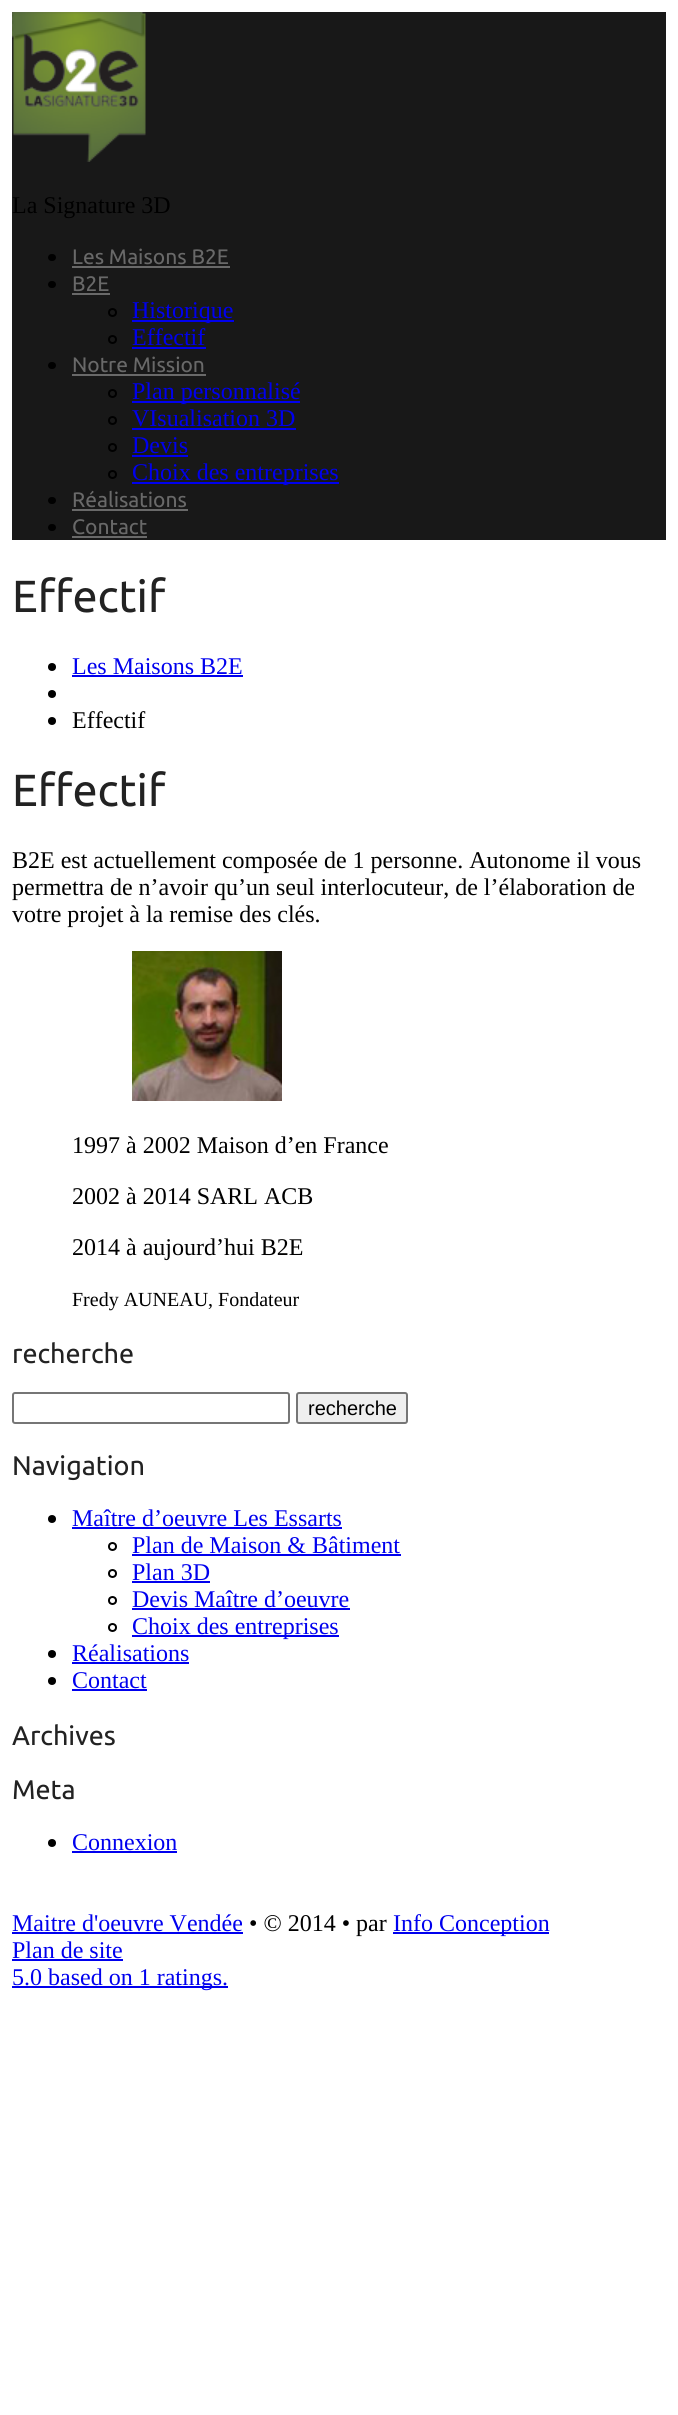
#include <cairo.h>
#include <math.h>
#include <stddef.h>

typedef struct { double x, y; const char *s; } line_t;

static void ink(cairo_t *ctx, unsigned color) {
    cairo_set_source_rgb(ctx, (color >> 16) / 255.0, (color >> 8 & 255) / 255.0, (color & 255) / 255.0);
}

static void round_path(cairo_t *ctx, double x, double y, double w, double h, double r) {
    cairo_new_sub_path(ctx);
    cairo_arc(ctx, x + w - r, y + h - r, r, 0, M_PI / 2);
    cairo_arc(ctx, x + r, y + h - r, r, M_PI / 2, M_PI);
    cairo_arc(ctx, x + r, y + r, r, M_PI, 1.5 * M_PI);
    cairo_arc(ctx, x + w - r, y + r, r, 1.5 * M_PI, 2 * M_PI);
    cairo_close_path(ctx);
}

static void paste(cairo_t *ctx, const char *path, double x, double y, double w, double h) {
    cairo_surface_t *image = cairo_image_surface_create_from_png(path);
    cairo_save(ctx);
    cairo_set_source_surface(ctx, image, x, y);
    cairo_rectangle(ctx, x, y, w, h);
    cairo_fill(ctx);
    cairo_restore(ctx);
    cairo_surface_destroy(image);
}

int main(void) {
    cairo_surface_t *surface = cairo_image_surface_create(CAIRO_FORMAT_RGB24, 678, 2415);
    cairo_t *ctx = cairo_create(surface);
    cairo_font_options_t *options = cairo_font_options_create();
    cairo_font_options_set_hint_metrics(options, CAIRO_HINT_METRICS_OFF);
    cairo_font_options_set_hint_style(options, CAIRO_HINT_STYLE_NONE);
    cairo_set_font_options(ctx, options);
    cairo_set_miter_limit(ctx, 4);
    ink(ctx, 0xFFFFFF);
    cairo_paint(ctx);
    ink(ctx, 0x181818);
    cairo_rectangle(ctx, 12, 12, 654, 528);
    cairo_fill(ctx);
    paste(ctx, "media/1.png", 12, 12, 134, 150);
    cairo_select_font_face(ctx, "Liberation Serif", CAIRO_FONT_SLANT_NORMAL, CAIRO_FONT_WEIGHT_NORMAL);
    cairo_set_font_size(ctx, 24);
    ink(ctx, 0x000000);
    cairo_move_to(ctx, 12, 213);
    cairo_show_text(ctx, "La Signature 3D");
    round_path(ctx, 48, 254, 8, 7, 3.5);
    cairo_fill(ctx);
    cairo_select_font_face(ctx, "Ubuntu", CAIRO_FONT_SLANT_NORMAL, CAIRO_FONT_WEIGHT_NORMAL);
    cairo_set_font_size(ctx, 21);
    ink(ctx, 0x696969);
    cairo_move_to(ctx, 72, 264);
    cairo_show_text(ctx, "Les Maisons B2E");
    cairo_rectangle(ctx, 72, 266, 158, 2);
    cairo_fill(ctx);
    ink(ctx, 0x000000);
    round_path(ctx, 48, 281, 8, 7, 3.5);
    cairo_fill(ctx);
    ink(ctx, 0x696969);
    cairo_move_to(ctx, 72, 291);
    cairo_show_text(ctx, "B2E");
    cairo_rectangle(ctx, 72, 293, 38, 2);
    cairo_fill(ctx);
    cairo_arc(ctx, 112.5, 312.5, 3.5, 0, 2 * M_PI);
    ink(ctx, 0x000000);
    cairo_stroke(ctx);
    ink(ctx, 0x0000EE);
    cairo_rectangle(ctx, 132, 320, 102, 2);
    cairo_fill(ctx);
    cairo_select_font_face(ctx, "Liberation Serif", CAIRO_FONT_SLANT_NORMAL, CAIRO_FONT_WEIGHT_NORMAL);
    cairo_set_font_size(ctx, 24);
    cairo_move_to(ctx, 132, 318);
    cairo_show_text(ctx, "Historique");
    cairo_new_path(ctx);
    cairo_arc(ctx, 112.5, 339.5, 3.5, 0, 2 * M_PI);
    ink(ctx, 0x000000);
    cairo_stroke(ctx);
    ink(ctx, 0x0000EE);
    cairo_move_to(ctx, 132, 345);
    cairo_show_text(ctx, "Effectif");
    cairo_rectangle(ctx, 132, 347, 74, 2);
    cairo_fill(ctx);
    ink(ctx, 0x000000);
    round_path(ctx, 48, 362, 8, 7, 3.5);
    cairo_fill(ctx);
    cairo_select_font_face(ctx, "Ubuntu", CAIRO_FONT_SLANT_NORMAL, CAIRO_FONT_WEIGHT_NORMAL);
    cairo_set_font_size(ctx, 21);
    ink(ctx, 0x696969);
    cairo_move_to(ctx, 72, 372);
    cairo_show_text(ctx, "Notre Mission");
    cairo_rectangle(ctx, 72, 374, 134, 2);
    cairo_fill(ctx);
    cairo_arc(ctx, 112.5, 393.5, 3.5, 0, 2 * M_PI);
    ink(ctx, 0x000000);
    cairo_stroke(ctx);
    ink(ctx, 0x0000EE);
    cairo_rectangle(ctx, 132, 401, 168, 2);
    cairo_fill(ctx);
    cairo_select_font_face(ctx, "Liberation Serif", CAIRO_FONT_SLANT_NORMAL, CAIRO_FONT_WEIGHT_NORMAL);
    cairo_set_font_size(ctx, 24);
    cairo_move_to(ctx, 132, 399);
    cairo_show_text(ctx, "Plan personnalisé");
    cairo_new_path(ctx);
    cairo_arc(ctx, 112.5, 420.5, 3.5, 0, 2 * M_PI);
    ink(ctx, 0x000000);
    cairo_stroke(ctx);
    ink(ctx, 0x0000EE);
    cairo_move_to(ctx, 132, 426);
    cairo_show_text(ctx, "VIsualisation 3D");
    cairo_rectangle(ctx, 132, 428, 164, 2);
    cairo_fill(ctx);
    cairo_arc(ctx, 112.5, 447.5, 3.5, 0, 2 * M_PI);
    ink(ctx, 0x000000);
    cairo_stroke(ctx);
    ink(ctx, 0x0000EE);
    cairo_move_to(ctx, 132, 453);
    cairo_show_text(ctx, "Devis");
    cairo_rectangle(ctx, 132, 455, 56, 2);
    cairo_fill(ctx);
    cairo_arc(ctx, 112.5, 474.5, 3.5, 0, 2 * M_PI);
    ink(ctx, 0x000000);
    cairo_stroke(ctx);
    ink(ctx, 0x0000EE);
    cairo_rectangle(ctx, 132, 482, 207, 2);
    cairo_fill(ctx);
    cairo_move_to(ctx, 132, 480);
    cairo_show_text(ctx, "Choix des entreprises");
    ink(ctx, 0x000000);
    round_path(ctx, 48, 497, 8, 7, 3.5);
    cairo_fill(ctx);
    cairo_select_font_face(ctx, "Ubuntu", CAIRO_FONT_SLANT_NORMAL, CAIRO_FONT_WEIGHT_NORMAL);
    cairo_set_font_size(ctx, 21);
    ink(ctx, 0x696969);
    cairo_move_to(ctx, 72, 507);
    cairo_show_text(ctx, "Réalisations");
    cairo_rectangle(ctx, 72, 509, 116, 2);
    cairo_fill(ctx);
    ink(ctx, 0x000000);
    round_path(ctx, 48, 524, 8, 7, 3.5);
    cairo_fill(ctx);
    ink(ctx, 0x696969);
    cairo_move_to(ctx, 72, 534);
    cairo_show_text(ctx, "Contact");
    cairo_rectangle(ctx, 72, 536, 75, 2);
    cairo_fill(ctx);
    cairo_set_font_size(ctx, 45);
    ink(ctx, 0x222222);
    cairo_move_to(ctx, 12, 612);
    cairo_show_text(ctx, "Effectif");
    ink(ctx, 0x000000);
    cairo_new_path(ctx);
    cairo_arc(ctx, 52, 667, 4, 0, 2 * M_PI);
    cairo_fill(ctx);
    cairo_select_font_face(ctx, "Liberation Serif", CAIRO_FONT_SLANT_NORMAL, CAIRO_FONT_WEIGHT_NORMAL);
    cairo_set_font_size(ctx, 24);
    ink(ctx, 0x0000EE);
    cairo_move_to(ctx, 72, 674);
    cairo_show_text(ctx, "Les Maisons B2E");
    cairo_rectangle(ctx, 72, 675, 171, 2);
    cairo_fill(ctx);
    ink(ctx, 0x000000);
    cairo_arc(ctx, 52, 694, 4, 0, 2 * M_PI);
    cairo_fill(ctx);
    cairo_arc(ctx, 52, 721, 4, 0, 2 * M_PI);
    cairo_fill(ctx);
    cairo_move_to(ctx, 72, 728);
    cairo_show_text(ctx, "Effectif");
    cairo_select_font_face(ctx, "Ubuntu", CAIRO_FONT_SLANT_NORMAL, CAIRO_FONT_WEIGHT_NORMAL);
    cairo_set_font_size(ctx, 45);
    ink(ctx, 0x222222);
    cairo_move_to(ctx, 12, 806);
    cairo_show_text(ctx, "Effectif");
    cairo_select_font_face(ctx, "Liberation Serif", CAIRO_FONT_SLANT_NORMAL, CAIRO_FONT_WEIGHT_NORMAL);
    cairo_set_font_size(ctx, 24);
    ink(ctx, 0x000000);
    {
        static const line_t items[] = {
            {12, 868, "B2E est actuellement composée de 1 personne. Autonome il vous"},
            {12, 895, "permettra de n’avoir qu’un seul interlocuteur, de l’élaboration de"},
            {12, 922, "votre projet à la remise des clés."},
        };
        for (size_t i = 0; i < sizeof items / sizeof *items; i++) {
            cairo_move_to(ctx, items[i].x, items[i].y);
            cairo_show_text(ctx, items[i].s);
        }
    }
    paste(ctx, "media/2.png", 132, 951, 150, 150);
    {
        static const line_t items[] = {
            {72, 1153, "1997 à 2002 Maison d’en France"},
            {72, 1204, "2002 à 2014 SARL ACB"},
            {72, 1255, "2014 à aujourd’hui B2E"},
        };
        for (size_t i = 0; i < sizeof items / sizeof *items; i++) {
            cairo_move_to(ctx, items[i].x, items[i].y);
            cairo_show_text(ctx, items[i].s);
        }
    }
    cairo_set_font_size(ctx, 20);
    cairo_move_to(ctx, 72, 1306);
    cairo_show_text(ctx, "Fredy AUNEAU, Fondateur");
    cairo_select_font_face(ctx, "Ubuntu", CAIRO_FONT_SLANT_NORMAL, CAIRO_FONT_WEIGHT_NORMAL);
    cairo_set_font_size(ctx, 27);
    ink(ctx, 0x222222);
    cairo_move_to(ctx, 12, 1363);
    cairo_show_text(ctx, "recherche");
    round_path(ctx, 13, 1393, 276, 30, 2);
    ink(ctx, 0x767676);
    cairo_stroke(ctx);
    ink(ctx, 0xEFEFEF);
    round_path(ctx, 297, 1393, 110, 30, 2);
    cairo_fill_preserve(ctx);
    ink(ctx, 0x767676);
    cairo_stroke(ctx);
    cairo_select_font_face(ctx, "Liberation Sans", CAIRO_FONT_SLANT_NORMAL, CAIRO_FONT_WEIGHT_NORMAL);
    cairo_set_font_size(ctx, 20);
    ink(ctx, 0x000000);
    cairo_move_to(ctx, 308, 1415);
    cairo_show_text(ctx, "recherche");
    cairo_select_font_face(ctx, "Ubuntu", CAIRO_FONT_SLANT_NORMAL, CAIRO_FONT_WEIGHT_NORMAL);
    cairo_set_font_size(ctx, 27);
    ink(ctx, 0x222222);
    cairo_move_to(ctx, 12, 1475);
    cairo_show_text(ctx, "Navigation");
    ink(ctx, 0x000000);
    cairo_new_path(ctx);
    cairo_arc(ctx, 52, 1519, 4, 0, 2 * M_PI);
    cairo_fill(ctx);
    cairo_select_font_face(ctx, "Liberation Serif", CAIRO_FONT_SLANT_NORMAL, CAIRO_FONT_WEIGHT_NORMAL);
    cairo_set_font_size(ctx, 24);
    ink(ctx, 0x0000EE);
    cairo_move_to(ctx, 72, 1526);
    cairo_show_text(ctx, "Maître d’oeuvre Les Essarts");
    cairo_rectangle(ctx, 72, 1527, 270, 2);
    cairo_fill(ctx);
    cairo_arc(ctx, 112.5, 1546.5, 3.5, 0, 2 * M_PI);
    ink(ctx, 0x000000);
    cairo_stroke(ctx);
    ink(ctx, 0x0000EE);
    cairo_move_to(ctx, 132, 1553);
    cairo_show_text(ctx, "Plan de Maison & Bâtiment");
    cairo_rectangle(ctx, 132, 1554, 269, 2);
    cairo_fill(ctx);
    cairo_arc(ctx, 112.5, 1573.5, 3.5, 0, 2 * M_PI);
    ink(ctx, 0x000000);
    cairo_stroke(ctx);
    ink(ctx, 0x0000EE);
    cairo_move_to(ctx, 132, 1580);
    cairo_show_text(ctx, "Plan 3D");
    cairo_rectangle(ctx, 132, 1581, 78, 2);
    cairo_fill(ctx);
    cairo_arc(ctx, 112.5, 1600.5, 3.5, 0, 2 * M_PI);
    ink(ctx, 0x000000);
    cairo_stroke(ctx);
    ink(ctx, 0x0000EE);
    cairo_move_to(ctx, 132, 1607);
    cairo_show_text(ctx, "Devis Maître d’oeuvre");
    cairo_rectangle(ctx, 132, 1608, 218, 2);
    cairo_fill(ctx);
    cairo_arc(ctx, 112.5, 1627.5, 3.5, 0, 2 * M_PI);
    ink(ctx, 0x000000);
    cairo_stroke(ctx);
    ink(ctx, 0x0000EE);
    cairo_rectangle(ctx, 132, 1635, 207, 2);
    cairo_fill(ctx);
    cairo_move_to(ctx, 132, 1634);
    cairo_show_text(ctx, "Choix des entreprises");
    ink(ctx, 0x000000);
    cairo_new_path(ctx);
    cairo_arc(ctx, 52, 1654, 4, 0, 2 * M_PI);
    cairo_fill(ctx);
    ink(ctx, 0x0000EE);
    cairo_move_to(ctx, 72, 1661);
    cairo_show_text(ctx, "Réalisations");
    cairo_rectangle(ctx, 72, 1662, 117, 2);
    cairo_fill(ctx);
    ink(ctx, 0x000000);
    cairo_arc(ctx, 52, 1681, 4, 0, 2 * M_PI);
    cairo_fill(ctx);
    ink(ctx, 0x0000EE);
    cairo_move_to(ctx, 72, 1688);
    cairo_show_text(ctx, "Contact");
    cairo_rectangle(ctx, 72, 1689, 75, 2);
    cairo_fill(ctx);
    cairo_select_font_face(ctx, "Ubuntu", CAIRO_FONT_SLANT_NORMAL, CAIRO_FONT_WEIGHT_NORMAL);
    cairo_set_font_size(ctx, 27);
    ink(ctx, 0x222222);
    cairo_move_to(ctx, 12, 1745);
    cairo_show_text(ctx, "Archives");
    cairo_move_to(ctx, 12, 1799);
    cairo_show_text(ctx, "Meta");
    ink(ctx, 0x000000);
    cairo_new_path(ctx);
    cairo_arc(ctx, 52, 1843, 4, 0, 2 * M_PI);
    cairo_fill(ctx);
    cairo_select_font_face(ctx, "Liberation Serif", CAIRO_FONT_SLANT_NORMAL, CAIRO_FONT_WEIGHT_NORMAL);
    cairo_set_font_size(ctx, 24);
    ink(ctx, 0x0000EE);
    cairo_move_to(ctx, 72, 1850);
    cairo_show_text(ctx, "Connexion");
    cairo_rectangle(ctx, 72, 1851, 105, 2);
    cairo_fill(ctx);
    cairo_move_to(ctx, 12, 1931);
    cairo_show_text(ctx, "Maitre d'oeuvre Vendée");
    cairo_rectangle(ctx, 12, 1932, 231, 2);
    cairo_fill(ctx);
    ink(ctx, 0x000000);
    cairo_move_to(ctx, 249, 1931);
    cairo_show_text(ctx, "• © 2014 • par");
    ink(ctx, 0x0000EE);
    cairo_rectangle(ctx, 393, 1932, 156, 2);
    cairo_fill(ctx);
    cairo_move_to(ctx, 393, 1931);
    cairo_show_text(ctx, "Info Conception");
    cairo_move_to(ctx, 12, 1958);
    cairo_show_text(ctx, "Plan de site");
    cairo_rectangle(ctx, 12, 1959, 111, 2);
    cairo_fill(ctx);
    cairo_rectangle(ctx, 12, 1986, 216, 2);
    cairo_fill(ctx);
    cairo_move_to(ctx, 12, 1985);
    cairo_show_text(ctx, "5.0 based on 1 ratings.");
    cairo_surface_write_to_png(surface, "image.png");
    cairo_font_options_destroy(options);
    cairo_destroy(ctx);
    cairo_surface_destroy(surface);
    return 0;
}
